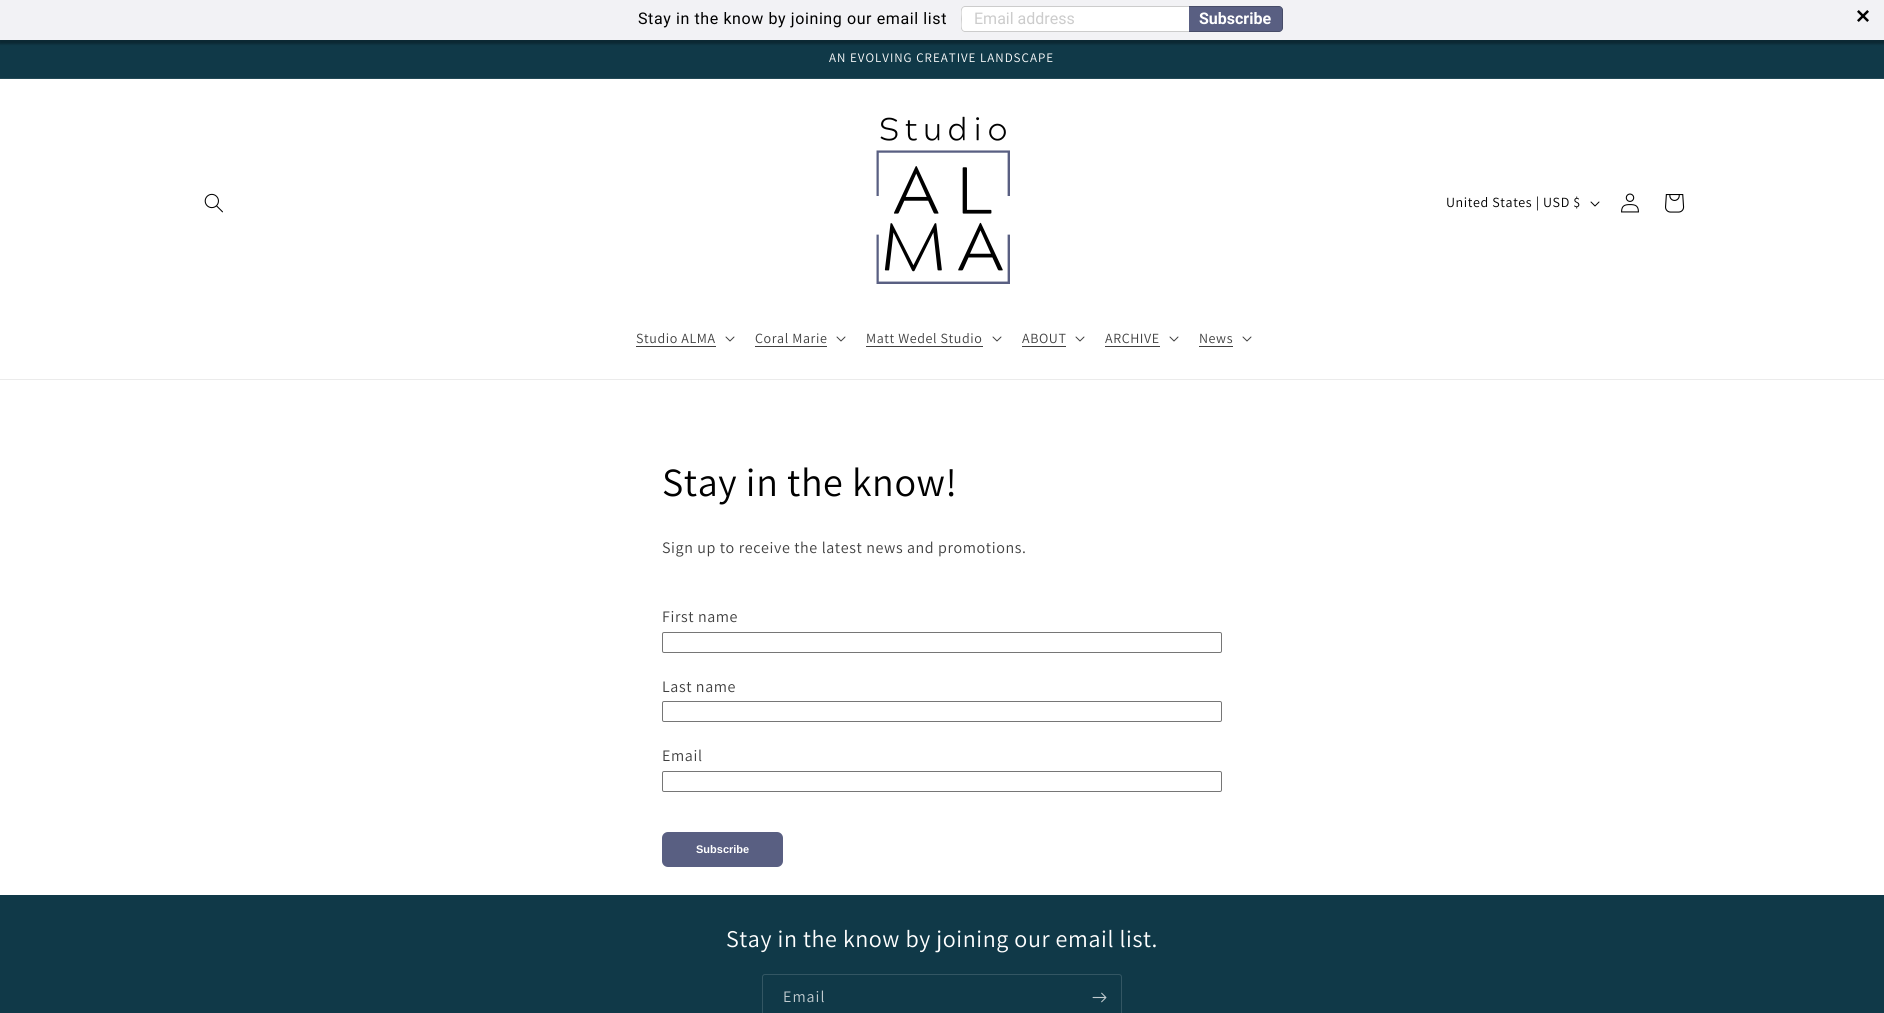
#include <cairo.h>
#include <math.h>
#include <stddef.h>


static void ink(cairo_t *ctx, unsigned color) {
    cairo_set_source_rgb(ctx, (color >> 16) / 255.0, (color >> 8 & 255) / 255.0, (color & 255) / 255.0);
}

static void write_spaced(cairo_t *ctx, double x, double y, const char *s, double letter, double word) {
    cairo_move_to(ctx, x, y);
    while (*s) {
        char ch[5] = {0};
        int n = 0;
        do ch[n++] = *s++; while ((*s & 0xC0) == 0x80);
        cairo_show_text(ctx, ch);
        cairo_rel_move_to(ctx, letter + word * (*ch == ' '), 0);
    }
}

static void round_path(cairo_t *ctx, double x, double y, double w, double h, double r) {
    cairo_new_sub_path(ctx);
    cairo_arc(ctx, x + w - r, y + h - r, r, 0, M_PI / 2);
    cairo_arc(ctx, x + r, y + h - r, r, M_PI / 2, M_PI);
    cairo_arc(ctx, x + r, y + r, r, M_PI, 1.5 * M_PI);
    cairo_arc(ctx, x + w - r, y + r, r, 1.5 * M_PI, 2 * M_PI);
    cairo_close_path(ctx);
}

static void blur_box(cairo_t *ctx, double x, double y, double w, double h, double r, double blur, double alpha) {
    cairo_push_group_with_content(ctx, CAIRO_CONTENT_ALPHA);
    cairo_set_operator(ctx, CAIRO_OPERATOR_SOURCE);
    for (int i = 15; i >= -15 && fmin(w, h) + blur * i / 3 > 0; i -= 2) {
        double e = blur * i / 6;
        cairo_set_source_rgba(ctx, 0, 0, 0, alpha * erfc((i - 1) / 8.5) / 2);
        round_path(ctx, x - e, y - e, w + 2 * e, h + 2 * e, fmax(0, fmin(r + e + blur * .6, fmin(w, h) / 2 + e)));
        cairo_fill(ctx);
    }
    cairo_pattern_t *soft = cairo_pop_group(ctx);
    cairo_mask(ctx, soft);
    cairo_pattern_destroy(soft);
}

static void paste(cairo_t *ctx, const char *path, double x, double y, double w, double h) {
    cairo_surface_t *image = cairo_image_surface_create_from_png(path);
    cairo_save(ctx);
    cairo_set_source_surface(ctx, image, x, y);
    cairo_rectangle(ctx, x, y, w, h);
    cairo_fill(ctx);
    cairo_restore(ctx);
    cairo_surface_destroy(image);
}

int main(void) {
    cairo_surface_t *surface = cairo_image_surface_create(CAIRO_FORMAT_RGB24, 1884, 1013);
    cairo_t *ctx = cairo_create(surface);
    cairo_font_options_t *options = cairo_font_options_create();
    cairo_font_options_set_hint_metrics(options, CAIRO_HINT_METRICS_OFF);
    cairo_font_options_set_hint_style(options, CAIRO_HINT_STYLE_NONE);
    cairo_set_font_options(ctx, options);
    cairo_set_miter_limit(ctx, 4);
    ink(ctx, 0xFFFFFF);
    cairo_paint(ctx);
    ink(ctx, 0x103948);
    cairo_rectangle(ctx, 0, 40, 1884, 38);
    cairo_fill(ctx);
    ink(ctx, 0x000000);
    blur_box(ctx, -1, 2, 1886, 42, 0, 1, 0.3);
    ink(ctx, 0xF2F2F5);
    cairo_rectangle(ctx, 0, 0, 1884, 40);
    cairo_fill(ctx);
    cairo_select_font_face(ctx, "Roboto", CAIRO_FONT_SLANT_NORMAL, CAIRO_FONT_WEIGHT_NORMAL);
    cairo_set_font_size(ctx, 16);
    ink(ctx, 0x000000);
    write_spaced(ctx, 638, 24, "Stay in the know by joining our email list", 0.6, 0);
    ink(ctx, 0xFFFFFF);
    cairo_new_path(ctx);
    cairo_move_to(ctx, 965, 6);
    cairo_line_to(ctx, 1189, 6);
    cairo_line_to(ctx, 1189, 32);
    cairo_line_to(ctx, 965, 32);
    cairo_curve_to(ctx, 963, 32, 961, 30, 961, 28);
    cairo_line_to(ctx, 961, 10);
    cairo_curve_to(ctx, 961, 8, 963, 6, 965, 6);
    cairo_close_path(ctx);
    cairo_fill(ctx);
    cairo_set_source_rgba(ctx, 0, 0, 0, 0.2);
    cairo_set_fill_rule(ctx, CAIRO_FILL_RULE_EVEN_ODD);
    cairo_new_path(ctx);
    cairo_move_to(ctx, 965, 6);
    cairo_line_to(ctx, 1189, 6);
    cairo_line_to(ctx, 1189, 32);
    cairo_line_to(ctx, 965, 32);
    cairo_curve_to(ctx, 963, 32, 961, 30, 961, 28);
    cairo_line_to(ctx, 961, 10);
    cairo_curve_to(ctx, 961, 8, 963, 6, 965, 6);
    cairo_close_path(ctx);
    cairo_move_to(ctx, 965, 7);
    cairo_line_to(ctx, 1189, 7);
    cairo_line_to(ctx, 1189, 31);
    cairo_line_to(ctx, 965, 31);
    cairo_curve_to(ctx, 960, 31, 962, 22, 962, 19);
    cairo_curve_to(ctx, 962, 16, 960, 7, 965, 7);
    cairo_close_path(ctx);
    cairo_fill(ctx);
    ink(ctx, 0xCCCCCC);
    cairo_move_to(ctx, 974, 24);
    cairo_show_text(ctx, "Email address");
    ink(ctx, 0x595F82);
    cairo_new_path(ctx);
    cairo_move_to(ctx, 1189, 6);
    cairo_line_to(ctx, 1279, 6);
    cairo_curve_to(ctx, 1281, 6, 1283, 8, 1283, 10);
    cairo_line_to(ctx, 1283, 28);
    cairo_curve_to(ctx, 1283, 30, 1281, 32, 1279, 32);
    cairo_line_to(ctx, 1189, 32);
    cairo_close_path(ctx);
    cairo_fill(ctx);
    cairo_set_source_rgba(ctx, 0, 0, 0, 0.2);
    cairo_new_path(ctx);
    cairo_move_to(ctx, 1189, 6);
    cairo_line_to(ctx, 1279, 6);
    cairo_curve_to(ctx, 1281, 6, 1283, 8, 1283, 10);
    cairo_line_to(ctx, 1283, 28);
    cairo_curve_to(ctx, 1283, 30, 1281, 32, 1279, 32);
    cairo_line_to(ctx, 1189, 32);
    cairo_close_path(ctx);
    cairo_move_to(ctx, 1189, 7);
    cairo_line_to(ctx, 1279, 7);
    cairo_curve_to(ctx, 1281, 7, 1282, 8, 1282, 10);
    cairo_line_to(ctx, 1282, 28);
    cairo_curve_to(ctx, 1282, 30, 1281, 31, 1279, 31);
    cairo_line_to(ctx, 1189, 31);
    cairo_close_path(ctx);
    cairo_fill(ctx);
    cairo_select_font_face(ctx, "Roboto", CAIRO_FONT_SLANT_NORMAL, CAIRO_FONT_WEIGHT_BOLD);
    ink(ctx, 0xFFFFFF);
    cairo_move_to(ctx, 1199, 24);
    cairo_show_text(ctx, "Subscribe");
    paste(ctx, "media/1.png", 1857, 10, 12, 12);
    ink(ctx, 0x234956);
    cairo_rectangle(ctx, 0, 78, 1884, 1);
    cairo_fill(ctx);
    cairo_select_font_face(ctx, "Assistant", CAIRO_FONT_SLANT_NORMAL, CAIRO_FONT_WEIGHT_NORMAL);
    cairo_set_font_size(ctx, 13);
    ink(ctx, 0xFFFFFF);
    write_spaced(ctx, 829, 62, "AN EVOLVING CREATIVE LANDSCAPE", 1, 0);
    ink(ctx, 0xEBEBEB);
    cairo_rectangle(ctx, 0, 379, 1884, 1);
    cairo_fill(ctx);
    paste(ctx, "media/2.png", 204, 193, 19, 20);
    paste(ctx, "media/3.png", 876, 116, 134, 168);
    cairo_set_font_size(ctx, 14);
    ink(ctx, 0x000000);
    write_spaced(ctx, 1446, 207, "United States | USD $", 0.6, 0);
    paste(ctx, "media/4.png", 1590, 201, 10, 6);
    paste(ctx, "media/5.png", 1621, 193, 18, 20);
    paste(ctx, "media/6.png", 1665, 194, 20, 19);
    ink(ctx, 0x404040);
    write_spaced(ctx, 636, 343, "Studio ALMA", 0.6, 0);
    cairo_rectangle(ctx, 636, 346, 80, 1);
    cairo_fill(ctx);
    paste(ctx, "media/7.png", 725, 336, 10, 6);
    write_spaced(ctx, 755, 343, "Coral Marie", 0.6, 0);
    cairo_rectangle(ctx, 755, 346, 72, 1);
    cairo_fill(ctx);
    paste(ctx, "media/7.png", 836, 336, 10, 6);
    write_spaced(ctx, 866, 343, "Matt Wedel Studio", 0.6, 0);
    cairo_rectangle(ctx, 866, 346, 117, 1);
    cairo_fill(ctx);
    paste(ctx, "media/7.png", 992, 336, 10, 6);
    write_spaced(ctx, 1022, 343, "ABOUT", 0.6, 0);
    cairo_rectangle(ctx, 1022, 346, 44, 1);
    cairo_fill(ctx);
    paste(ctx, "media/7.png", 1075, 336, 10, 6);
    write_spaced(ctx, 1105, 343, "ARCHIVE", 0.6, 0);
    cairo_rectangle(ctx, 1105, 346, 55, 1);
    cairo_fill(ctx);
    paste(ctx, "media/7.png", 1169, 336, 10, 6);
    write_spaced(ctx, 1199, 343, "News", 0.6, 0);
    cairo_rectangle(ctx, 1199, 346, 34, 1);
    cairo_fill(ctx);
    paste(ctx, "media/7.png", 1242, 336, 10, 6);
    cairo_set_font_size(ctx, 40);
    ink(ctx, 0x000000);
    write_spaced(ctx, 662, 496, "Stay in the know!", 0.6, 0);
    cairo_set_font_size(ctx, 16);
    ink(ctx, 0x404040);
    write_spaced(ctx, 662, 553, "Sign up to receive the latest news and promotions.", 0.6, 0);
    write_spaced(ctx, 662, 622, "First name", 0.6, 0);
    round_path(ctx, 662.5, 632.5, 559, 20, 1.5);
    ink(ctx, 0x767676);
    cairo_set_line_width(ctx, 1);
    cairo_stroke(ctx);
    ink(ctx, 0x404040);
    write_spaced(ctx, 662, 692, "Last name", 0.6, 0);
    round_path(ctx, 662.5, 701.5, 559, 20, 1.5);
    ink(ctx, 0x767676);
    cairo_stroke(ctx);
    ink(ctx, 0x404040);
    write_spaced(ctx, 662, 761, "Email", 0.6, 0);
    round_path(ctx, 662.5, 771.5, 559, 20, 1.5);
    ink(ctx, 0x767676);
    cairo_stroke(ctx);
    ink(ctx, 0x595F82);
    round_path(ctx, 663, 833, 119, 33, 5);
    cairo_fill_preserve(ctx);
    cairo_set_line_width(ctx, 2);
    cairo_stroke(ctx);
    cairo_select_font_face(ctx, "Liberation Sans", CAIRO_FONT_SLANT_NORMAL, CAIRO_FONT_WEIGHT_BOLD);
    cairo_set_font_size(ctx, 11);
    ink(ctx, 0xFFFFFF);
    cairo_move_to(ctx, 696, 853);
    cairo_show_text(ctx, "Subscribe");
    ink(ctx, 0x103948);
    cairo_rectangle(ctx, 0, 895, 1884, 118);
    cairo_fill(ctx);
    cairo_select_font_face(ctx, "Assistant", CAIRO_FONT_SLANT_NORMAL, CAIRO_FONT_WEIGHT_NORMAL);
    cairo_set_font_size(ctx, 24);
    ink(ctx, 0xFFFFFF);
    write_spaced(ctx, 726, 947, "Stay in the know by joining our email list.", 0.6, 0);
    round_path(ctx, 762.5, 974.5, 359, 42, 2.5);
    ink(ctx, 0x335663);
    cairo_set_line_width(ctx, 1);
    cairo_stroke(ctx);
    cairo_set_font_size(ctx, 16);
    ink(ctx, 0xC1CBCF);
    write_spaced(ctx, 783, 1002, "Email", 1, 0);
    paste(ctx, "media/8.png", 1092, 992, 15, 11);
    cairo_surface_write_to_png(surface, "image.png");
    cairo_font_options_destroy(options);
    cairo_destroy(ctx);
    cairo_surface_destroy(surface);
    return 0;
}
